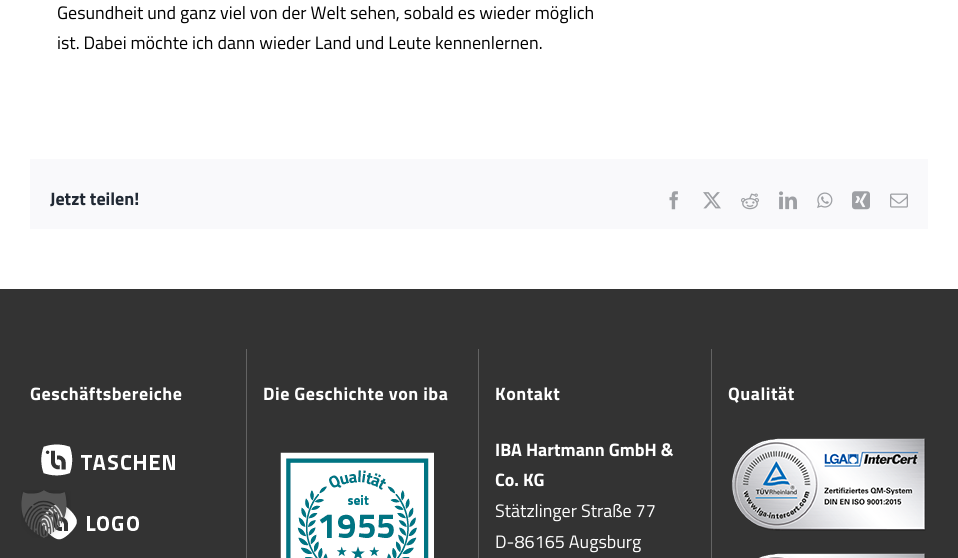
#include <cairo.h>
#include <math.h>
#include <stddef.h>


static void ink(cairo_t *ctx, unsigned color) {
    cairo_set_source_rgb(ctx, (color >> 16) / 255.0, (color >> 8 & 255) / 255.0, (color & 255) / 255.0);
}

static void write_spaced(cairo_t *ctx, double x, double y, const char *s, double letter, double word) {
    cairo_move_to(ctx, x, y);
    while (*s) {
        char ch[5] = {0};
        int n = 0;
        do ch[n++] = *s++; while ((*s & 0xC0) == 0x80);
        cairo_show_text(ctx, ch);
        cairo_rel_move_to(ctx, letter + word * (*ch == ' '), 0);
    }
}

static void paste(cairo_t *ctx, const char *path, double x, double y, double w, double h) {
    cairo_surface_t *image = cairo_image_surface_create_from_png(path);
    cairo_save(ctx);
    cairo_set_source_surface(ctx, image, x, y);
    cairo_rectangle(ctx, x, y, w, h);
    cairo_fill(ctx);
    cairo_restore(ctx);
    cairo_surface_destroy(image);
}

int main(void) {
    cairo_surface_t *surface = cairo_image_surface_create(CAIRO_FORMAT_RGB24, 958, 558);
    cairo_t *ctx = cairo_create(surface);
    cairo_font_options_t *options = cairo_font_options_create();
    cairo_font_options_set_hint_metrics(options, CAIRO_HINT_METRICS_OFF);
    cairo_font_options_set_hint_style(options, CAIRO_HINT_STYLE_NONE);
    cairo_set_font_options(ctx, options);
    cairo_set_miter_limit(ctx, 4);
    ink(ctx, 0xFFFFFF);
    cairo_paint(ctx);
    cairo_select_font_face(ctx, "Titillium Web", CAIRO_FONT_SLANT_NORMAL, CAIRO_FONT_WEIGHT_NORMAL);
    cairo_set_font_size(ctx, 18);
    ink(ctx, 0x000000);
    cairo_move_to(ctx, 57, 19);
    cairo_show_text(ctx, "Gesundheit und ganz viel von der Welt sehen, sobald es wieder möglich");
    cairo_move_to(ctx, 57, 49);
    cairo_show_text(ctx, "ist. Dabei möchte ich dann wieder Land und Leute kennenlernen.");
    ink(ctx, 0xF9F9FB);
    cairo_rectangle(ctx, 30, 159, 898, 70);
    cairo_fill(ctx);
    cairo_select_font_face(ctx, "Titillium Web", CAIRO_FONT_SLANT_NORMAL, CAIRO_FONT_WEIGHT_BOLD);
    ink(ctx, 0x212934);
    cairo_move_to(ctx, 50, 205);
    cairo_show_text(ctx, "Jetzt teilen!");
    paste(ctx, "media/1.png", 669, 191, 9, 19);
    paste(ctx, "media/2.png", 703, 192, 18, 17);
    paste(ctx, "media/3.png", 741, 193, 18, 17);
    paste(ctx, "media/4.png", 779, 191, 18, 19);
    paste(ctx, "media/5.png", 817, 192, 16, 16);
    paste(ctx, "media/6.png", 852, 191, 18, 19);
    paste(ctx, "media/7.png", 890, 193, 18, 15);
    ink(ctx, 0x333333);
    cairo_rectangle(ctx, 0, 289, 958, 269);
    cairo_fill(ctx);
    ink(ctx, 0x636363);
    cairo_rectangle(ctx, 246, 349, 1, 209);
    cairo_fill(ctx);
    ink(ctx, 0xFFFFFF);
    write_spaced(ctx, 30, 400, "Geschäftsbereiche", 0.5, 0);
    paste(ctx, "media/8.png", 41, 444, 134, 32);
    paste(ctx, "media/9.png", 41, 504, 98, 36);
    ink(ctx, 0x636363);
    cairo_rectangle(ctx, 478, 349, 1, 209);
    cairo_fill(ctx);
    ink(ctx, 0xFFFFFF);
    write_spaced(ctx, 263, 400, "Die Geschichte von iba", 0.5, 0);
    paste(ctx, "media/10.png", 280, 452, 154, 106);
    ink(ctx, 0x636363);
    cairo_rectangle(ctx, 711, 349, 1, 209);
    cairo_fill(ctx);
    ink(ctx, 0xFFFFFF);
    write_spaced(ctx, 495, 400, "Kontakt", 0.5, 0);
    cairo_move_to(ctx, 495, 456);
    cairo_show_text(ctx, "IBA Hartmann GmbH &");
    cairo_move_to(ctx, 495, 486);
    cairo_show_text(ctx, "Co. KG");
    cairo_select_font_face(ctx, "Titillium Web", CAIRO_FONT_SLANT_NORMAL, CAIRO_FONT_WEIGHT_NORMAL);
    cairo_move_to(ctx, 495, 517);
    cairo_show_text(ctx, "Stätzlinger Straße 77");
    cairo_move_to(ctx, 495, 548);
    cairo_show_text(ctx, "D-86165 Augsburg");
    cairo_select_font_face(ctx, "Titillium Web", CAIRO_FONT_SLANT_NORMAL, CAIRO_FONT_WEIGHT_BOLD);
    write_spaced(ctx, 728, 400, "Qualität", 0.5, 0);
    paste(ctx, "media/11.png", 731, 438, 195, 93);
    paste(ctx, "media/12.png", 758, 553, 168, 5);
    paste(ctx, "media/13.png", 21, 490, 50, 48);
    cairo_surface_write_to_png(surface, "image.png");
    cairo_font_options_destroy(options);
    cairo_destroy(ctx);
    cairo_surface_destroy(surface);
    return 0;
}
